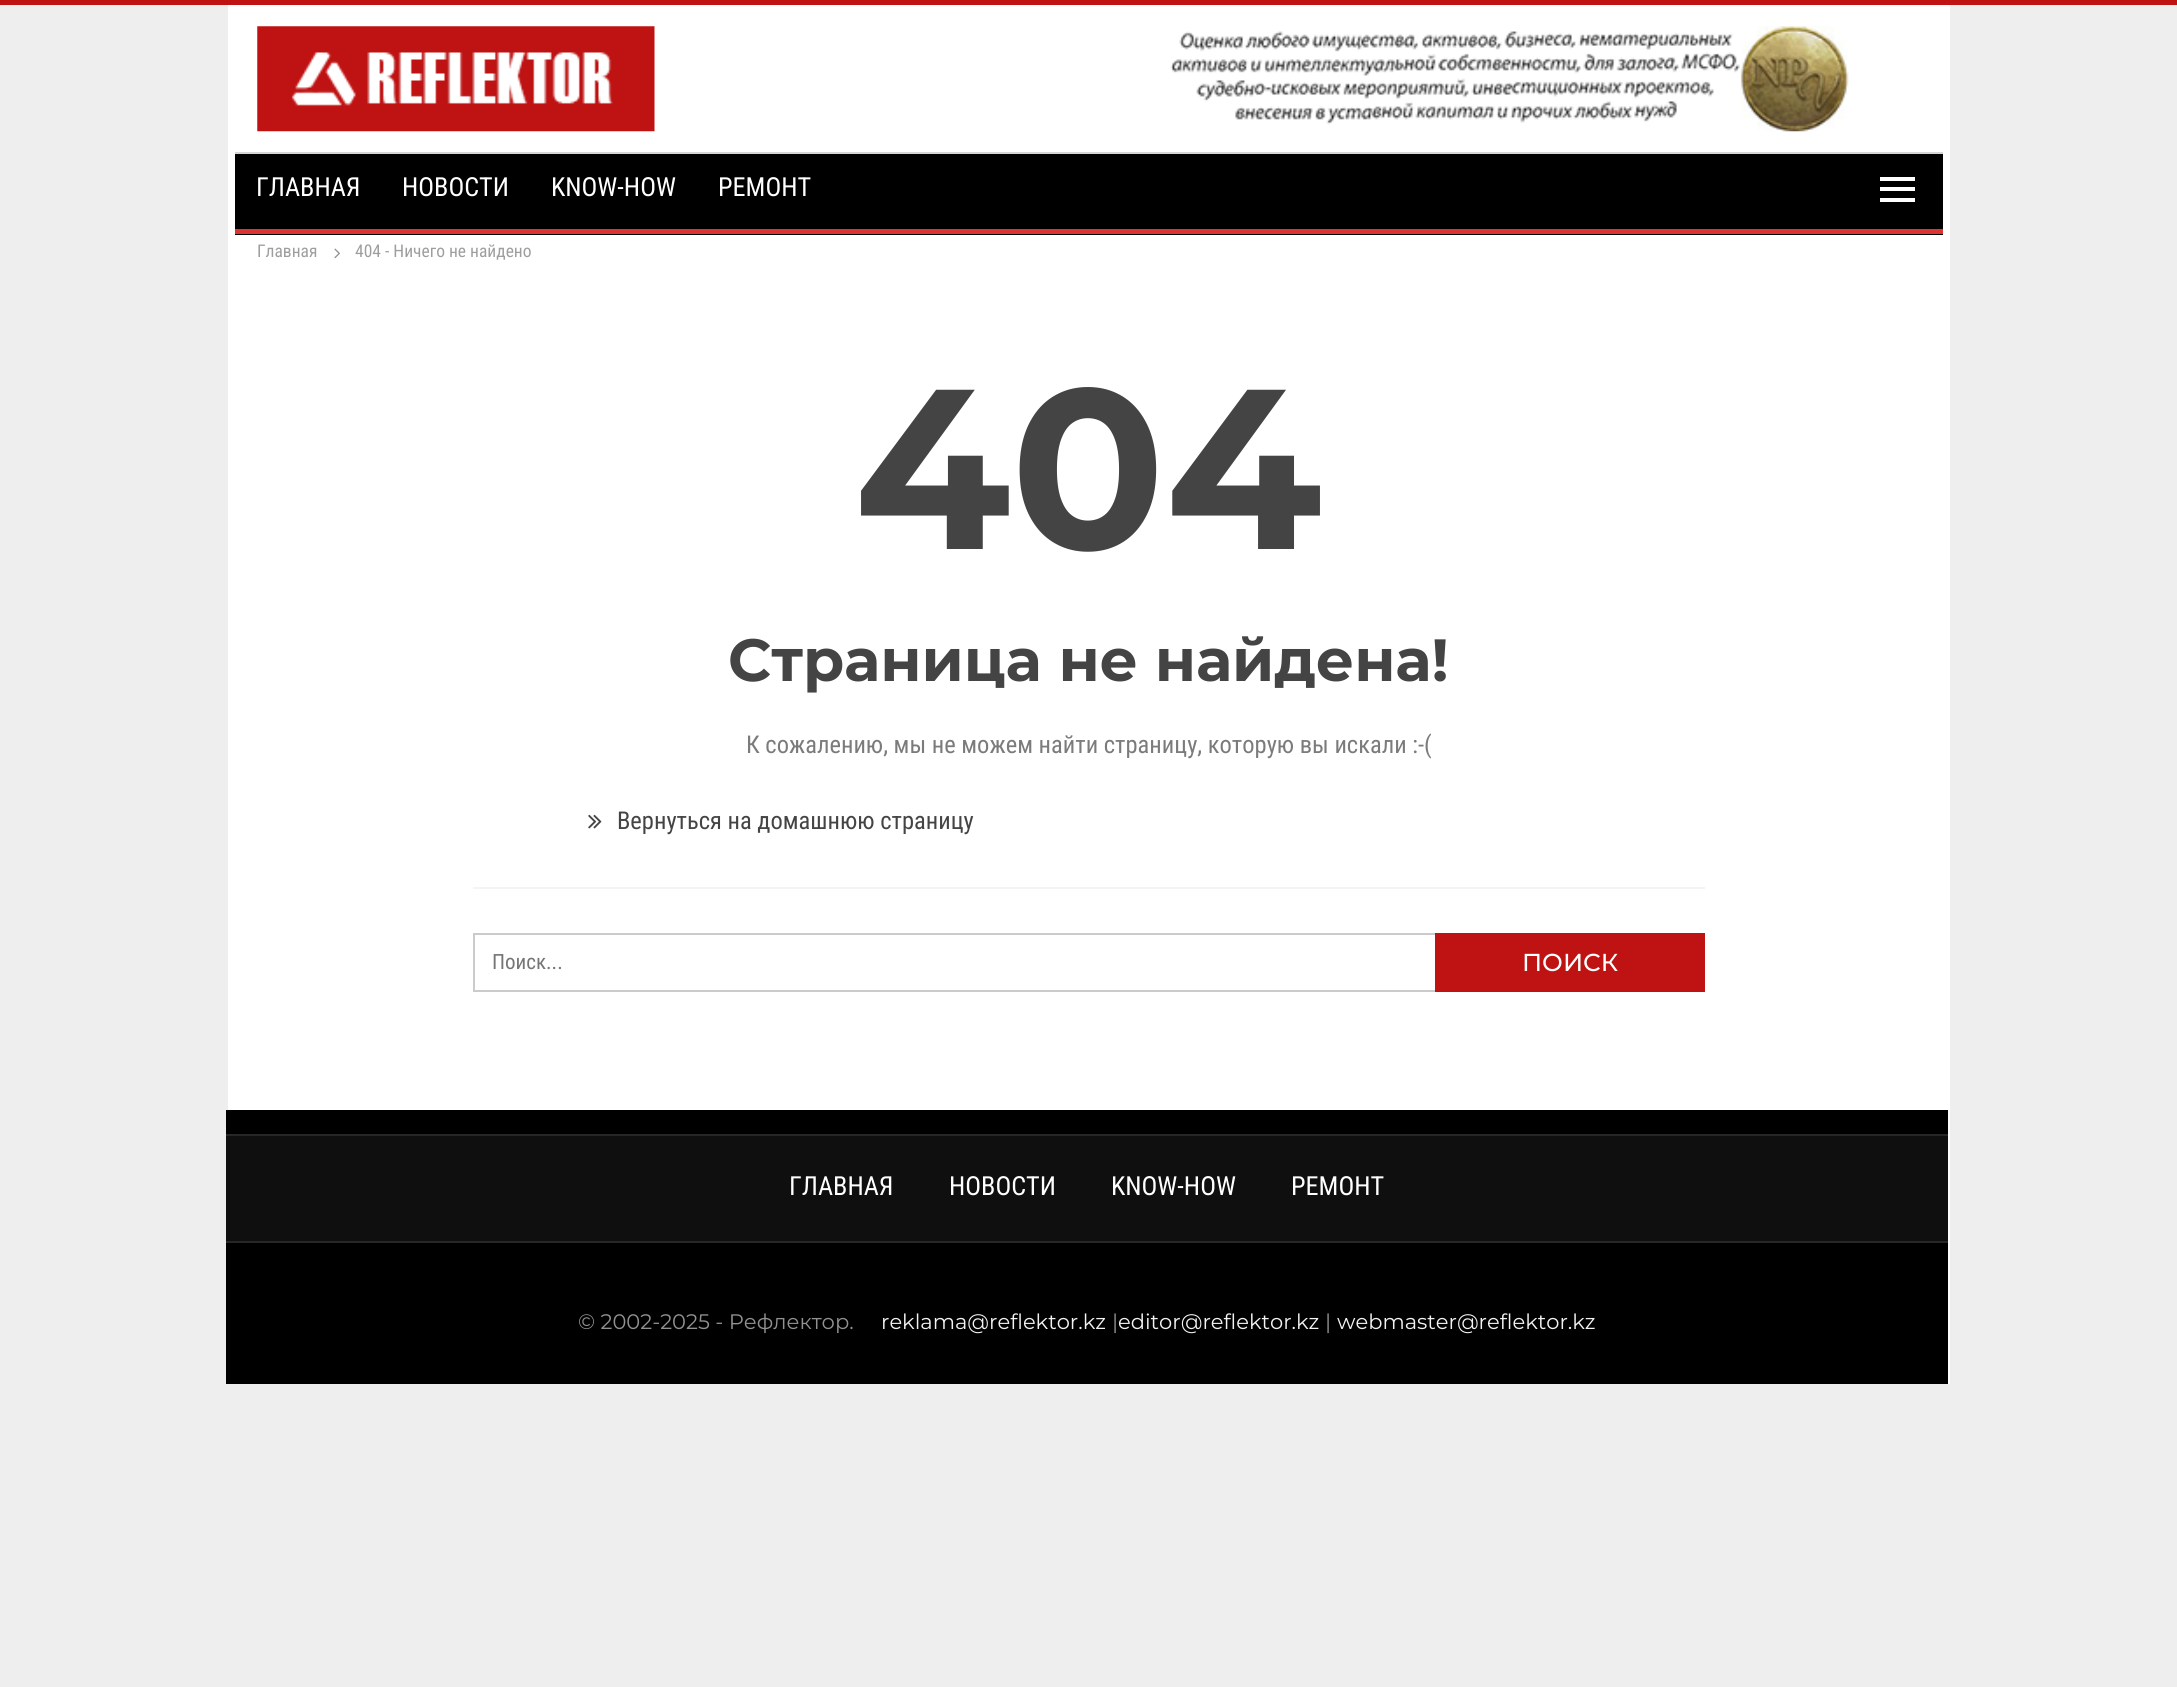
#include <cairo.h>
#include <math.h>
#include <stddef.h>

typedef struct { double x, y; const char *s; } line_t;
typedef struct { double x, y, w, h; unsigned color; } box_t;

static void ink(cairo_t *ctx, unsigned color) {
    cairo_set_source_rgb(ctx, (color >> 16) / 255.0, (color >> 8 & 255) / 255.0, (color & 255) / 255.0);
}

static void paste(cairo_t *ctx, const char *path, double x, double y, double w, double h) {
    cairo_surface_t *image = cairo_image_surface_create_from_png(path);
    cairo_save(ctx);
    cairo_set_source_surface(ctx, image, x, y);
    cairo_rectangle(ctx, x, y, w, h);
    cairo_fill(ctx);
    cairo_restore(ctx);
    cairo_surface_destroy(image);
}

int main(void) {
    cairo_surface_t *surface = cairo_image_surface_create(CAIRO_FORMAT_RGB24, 2177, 1687);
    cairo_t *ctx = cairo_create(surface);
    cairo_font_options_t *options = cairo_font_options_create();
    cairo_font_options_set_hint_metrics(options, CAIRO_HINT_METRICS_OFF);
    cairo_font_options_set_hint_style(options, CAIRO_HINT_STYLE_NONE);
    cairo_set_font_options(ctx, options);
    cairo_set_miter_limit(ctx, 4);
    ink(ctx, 0xEEEEEE);
    cairo_paint(ctx);
    ink(ctx, 0xBF1313);
    cairo_rectangle(ctx, 0, 0, 2177, 5);
    cairo_fill(ctx);
    ink(ctx, 0xFFFFFF);
    cairo_rectangle(ctx, 228, 5, 1722, 1379);
    cairo_fill(ctx);
    paste(ctx, "media/1.png", 257, 26, 398, 106);
    paste(ctx, "media/2.png", 1170, 26, 679, 106);
    {
        static const box_t items[] = {
            {235, 154, 1708, 81, 0x000000},
            {235, 152, 1708, 2, 0xD6D6D6},
            {235, 229, 1708, 5, 0xDD3333},
        };
        for (size_t i = 0; i < sizeof items / sizeof *items; i++) {
            ink(ctx, items[i].color);
            cairo_rectangle(ctx, items[i].x, items[i].y, items[i].w, items[i].h);
            cairo_fill(ctx);
        }
    }
    cairo_select_font_face(ctx, "Roboto Condensed", CAIRO_FONT_SLANT_NORMAL, CAIRO_FONT_WEIGHT_NORMAL);
    cairo_set_font_size(ctx, 26.25);
    ink(ctx, 0xFFFFFF);
    {
        static const line_t items[] = {
            {256, 196, "ГЛАВНАЯ"},
            {402, 196, "НОВОСТИ"},
            {551, 196, "KNOW-HOW"},
            {718, 196, "РЕМОНТ"},
        };
        for (size_t i = 0; i < sizeof items / sizeof *items; i++) {
            cairo_move_to(ctx, items[i].x, items[i].y);
            cairo_show_text(ctx, items[i].s);
        }
    }
    {
        static const box_t items[] = {
            {1880, 187, 35, 4, 0xFFFFFF},
            {1880, 177, 35, 4, 0xFFFFFF},
            {1880, 198, 35, 4, 0xFFFFFF},
        };
        for (size_t i = 0; i < sizeof items / sizeof *items; i++) {
            ink(ctx, items[i].color);
            cairo_rectangle(ctx, items[i].x, items[i].y, items[i].w, items[i].h);
            cairo_fill(ctx);
        }
    }
    cairo_set_font_size(ctx, 17.5);
    ink(ctx, 0x9E9E9E);
    cairo_move_to(ctx, 257, 257);
    cairo_show_text(ctx, "Главная");
    paste(ctx, "media/3.png", 334, 248, 6, 11);
    cairo_move_to(ctx, 355, 257);
    cairo_show_text(ctx, "404 - Ничего не найдено");
    cairo_select_font_face(ctx, "Montserrat", CAIRO_FONT_SLANT_NORMAL, CAIRO_FONT_WEIGHT_BOLD);
    cairo_set_font_size(ctx, 227.5);
    ink(ctx, 0x444444);
    cairo_move_to(ctx, 854, 549);
    cairo_show_text(ctx, "404");
    cairo_set_font_size(ctx, 59.5);
    cairo_move_to(ctx, 728, 681);
    cairo_show_text(ctx, "Страница не найдена!");
    cairo_select_font_face(ctx, "Roboto Condensed", CAIRO_FONT_SLANT_NORMAL, CAIRO_FONT_WEIGHT_NORMAL);
    cairo_set_font_size(ctx, 24.5);
    ink(ctx, 0x7B7B7B);
    cairo_move_to(ctx, 746, 753);
    cairo_show_text(ctx, "К сожалению, мы не можем найти страницу, которую вы искали :-(");
    paste(ctx, "media/4.png", 588, 814, 14, 15);
    ink(ctx, 0x444444);
    cairo_move_to(ctx, 617, 829);
    cairo_show_text(ctx, "Вернуться на домашнюю страницу");
    ink(ctx, 0xF4F4F4);
    cairo_rectangle(ctx, 473, 887, 1232, 2);
    cairo_fill(ctx);
    cairo_rectangle(ctx, 474, 934, 1230, 57);
    ink(ctx, 0xCBCBCB);
    cairo_stroke(ctx);
    cairo_set_font_size(ctx, 21);
    ink(ctx, 0x757575);
    cairo_move_to(ctx, 492, 969);
    cairo_show_text(ctx, "Поиск...");
    ink(ctx, 0xBF1313);
    cairo_rectangle(ctx, 1435, 933, 270, 59);
    cairo_fill(ctx);
    cairo_select_font_face(ctx, "Montserrat Medium", CAIRO_FONT_SLANT_NORMAL, CAIRO_FONT_WEIGHT_NORMAL);
    cairo_set_font_size(ctx, 24.5);
    ink(ctx, 0xFFFFFF);
    cairo_move_to(ctx, 1522, 971);
    cairo_show_text(ctx, "ПОИСК");
    ink(ctx, 0x000000);
    cairo_rectangle(ctx, 226, 1110, 1722, 274);
    cairo_fill(ctx);
    ink(ctx, 0x0F0F0F);
    cairo_rectangle(ctx, 226, 1136, 1722, 105);
    cairo_fill(ctx);
    cairo_save(ctx);
    cairo_rectangle(ctx, 226, 1134, 1722, 205);
    cairo_clip(ctx);
    cairo_rectangle(ctx, -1, 1135, 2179, 107);
    ink(ctx, 0x272727);
    cairo_stroke(ctx);
    cairo_restore(ctx);
    cairo_select_font_face(ctx, "Roboto Condensed", CAIRO_FONT_SLANT_NORMAL, CAIRO_FONT_WEIGHT_NORMAL);
    cairo_set_font_size(ctx, 26.25);
    ink(ctx, 0xFFFFFF);
    {
        static const line_t items[] = {
            {789, 1195, "ГЛАВНАЯ"},
            {949, 1195, "НОВОСТИ"},
            {1111, 1195, "KNOW-HOW"},
            {1291, 1195, "РЕМОНТ"},
        };
        for (size_t i = 0; i < sizeof items / sizeof *items; i++) {
            cairo_move_to(ctx, items[i].x, items[i].y);
            cairo_show_text(ctx, items[i].s);
        }
    }
    cairo_select_font_face(ctx, "Montserrat", CAIRO_FONT_SLANT_NORMAL, CAIRO_FONT_WEIGHT_NORMAL);
    cairo_set_font_size(ctx, 21);
    ink(ctx, 0x919191);
    cairo_move_to(ctx, 578, 1329);
    cairo_show_text(ctx, "© 2002-2025 - Рефлектор.");
    ink(ctx, 0xF3F3F3);
    cairo_move_to(ctx, 881, 1329);
    cairo_show_text(ctx, "reklama@reflektor.kz");
    ink(ctx, 0x919191);
    cairo_move_to(ctx, 1112, 1329);
    cairo_show_text(ctx, "|");
    ink(ctx, 0xF3F3F3);
    cairo_move_to(ctx, 1118, 1329);
    cairo_show_text(ctx, "editor@reflektor.kz");
    ink(ctx, 0x919191);
    cairo_move_to(ctx, 1325, 1329);
    cairo_show_text(ctx, "|");
    ink(ctx, 0xF3F3F3);
    cairo_move_to(ctx, 1337, 1329);
    cairo_show_text(ctx, "webmaster@reflektor.kz");
    cairo_surface_write_to_png(surface, "image.png");
    cairo_font_options_destroy(options);
    cairo_destroy(ctx);
    cairo_surface_destroy(surface);
    return 0;
}
